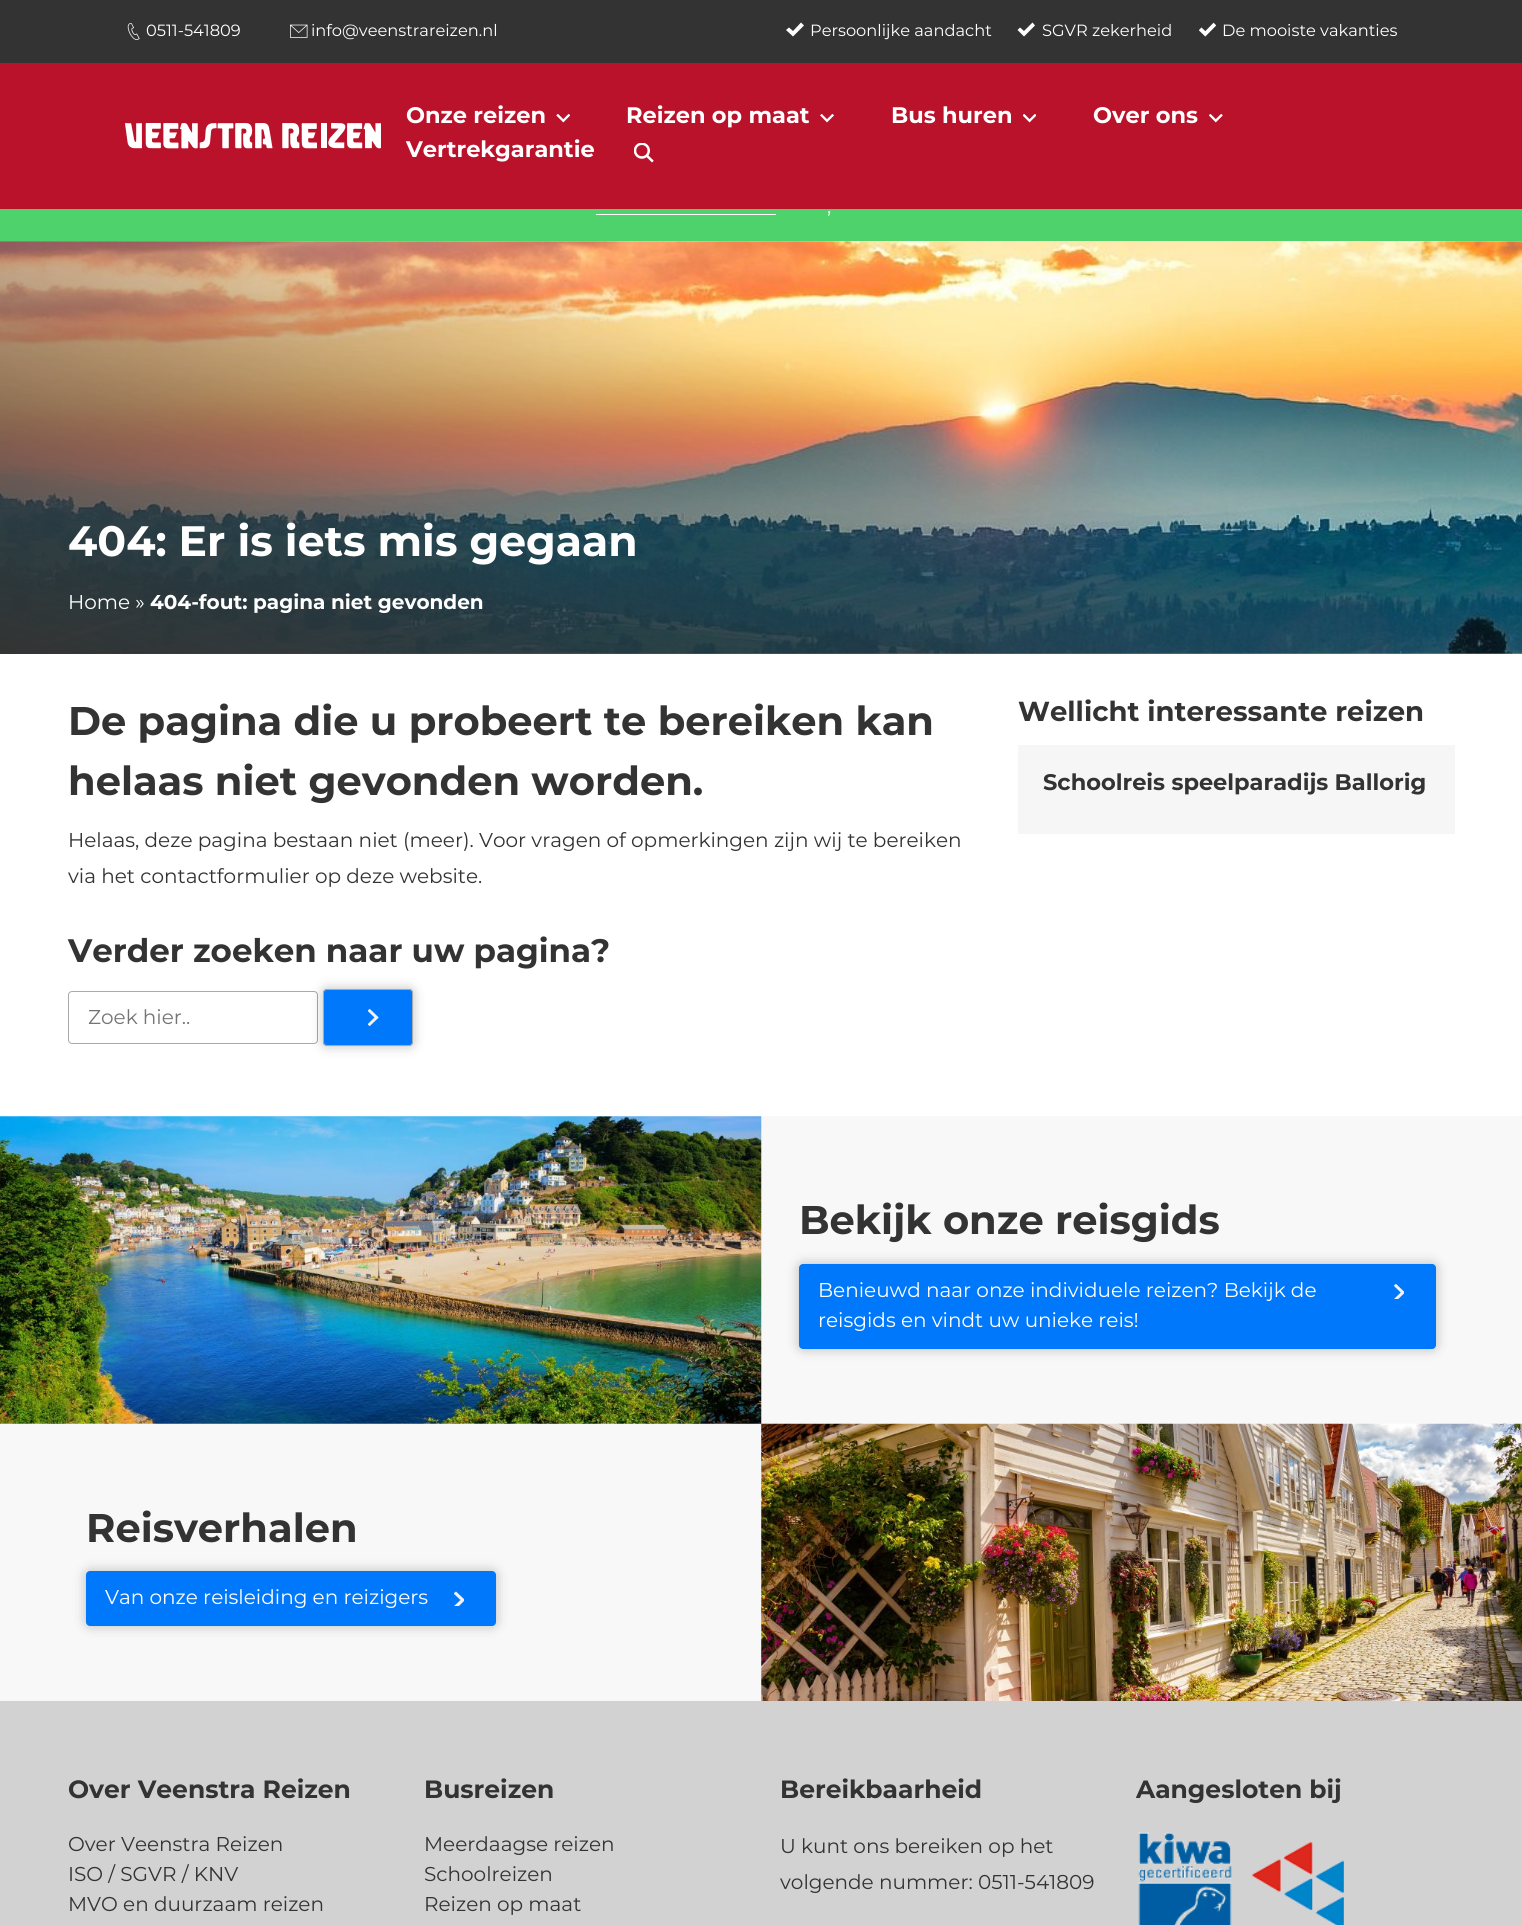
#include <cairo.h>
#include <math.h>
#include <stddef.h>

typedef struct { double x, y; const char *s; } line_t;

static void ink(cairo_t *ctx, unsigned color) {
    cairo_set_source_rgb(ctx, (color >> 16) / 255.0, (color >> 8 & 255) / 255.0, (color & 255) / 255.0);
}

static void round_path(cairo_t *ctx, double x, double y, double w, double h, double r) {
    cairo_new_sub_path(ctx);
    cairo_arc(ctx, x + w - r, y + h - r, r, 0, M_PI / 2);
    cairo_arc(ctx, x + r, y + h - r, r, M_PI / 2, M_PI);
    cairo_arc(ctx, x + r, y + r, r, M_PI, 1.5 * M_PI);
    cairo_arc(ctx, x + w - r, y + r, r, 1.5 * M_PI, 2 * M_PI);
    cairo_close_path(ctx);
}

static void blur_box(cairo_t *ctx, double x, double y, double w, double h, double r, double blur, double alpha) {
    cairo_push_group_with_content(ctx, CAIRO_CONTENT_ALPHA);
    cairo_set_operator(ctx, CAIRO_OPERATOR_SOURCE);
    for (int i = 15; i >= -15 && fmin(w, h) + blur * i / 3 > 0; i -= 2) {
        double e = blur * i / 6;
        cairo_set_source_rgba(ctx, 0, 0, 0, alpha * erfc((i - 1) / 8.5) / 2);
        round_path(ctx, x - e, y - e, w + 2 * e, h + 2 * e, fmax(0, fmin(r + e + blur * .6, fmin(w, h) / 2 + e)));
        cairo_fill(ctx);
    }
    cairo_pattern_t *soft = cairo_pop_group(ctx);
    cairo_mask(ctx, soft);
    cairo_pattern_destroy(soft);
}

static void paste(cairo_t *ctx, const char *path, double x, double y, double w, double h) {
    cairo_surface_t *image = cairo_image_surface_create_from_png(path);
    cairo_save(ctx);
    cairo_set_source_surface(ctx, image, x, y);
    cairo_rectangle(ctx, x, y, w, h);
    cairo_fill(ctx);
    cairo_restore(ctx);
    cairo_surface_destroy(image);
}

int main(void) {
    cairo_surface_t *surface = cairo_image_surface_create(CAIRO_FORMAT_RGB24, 1522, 1925);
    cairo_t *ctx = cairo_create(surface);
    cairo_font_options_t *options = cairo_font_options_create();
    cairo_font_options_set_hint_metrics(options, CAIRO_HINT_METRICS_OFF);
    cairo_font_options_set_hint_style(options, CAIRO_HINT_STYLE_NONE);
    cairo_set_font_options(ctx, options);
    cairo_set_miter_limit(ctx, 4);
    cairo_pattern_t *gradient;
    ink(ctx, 0xFFFFFF);
    cairo_paint(ctx);
    ink(ctx, 0x333333);
    cairo_rectangle(ctx, 0, 0, 1522, 63);
    cairo_fill(ctx);
    paste(ctx, "media/1.png", 127, 23, 13, 17);
    cairo_select_font_face(ctx, "Montserrat", CAIRO_FONT_SLANT_NORMAL, CAIRO_FONT_WEIGHT_NORMAL);
    cairo_set_font_size(ctx, 16.25);
    ink(ctx, 0xFFFFFF);
    cairo_move_to(ctx, 146, 36);
    cairo_show_text(ctx, "0511-541809");
    paste(ctx, "media/2.png", 290, 24, 18, 14);
    cairo_move_to(ctx, 311, 36);
    cairo_show_text(ctx, "info@veenstrareizen.nl");
    cairo_new_path(ctx);
    cairo_move_to(ctx, 801, 22.5);
    cairo_line_to(ctx, 793, 31);
    cairo_line_to(ctx, 789, 27.5);
    cairo_line_to(ctx, 786, 30);
    cairo_line_to(ctx, 793, 36.5);
    cairo_line_to(ctx, 804, 25.5);
    cairo_close_path(ctx);
    cairo_fill(ctx);
    cairo_move_to(ctx, 810, 36);
    cairo_show_text(ctx, "Persoonlijke aandacht");
    cairo_new_path(ctx);
    cairo_move_to(ctx, 1032.5, 22.5);
    cairo_line_to(ctx, 1024, 31);
    cairo_line_to(ctx, 1020, 27.5);
    cairo_line_to(ctx, 1017.5, 30);
    cairo_line_to(ctx, 1024, 36.5);
    cairo_line_to(ctx, 1035, 25.5);
    cairo_close_path(ctx);
    cairo_fill(ctx);
    cairo_move_to(ctx, 1042, 36);
    cairo_show_text(ctx, "SGVR zekerheid");
    paste(ctx, "media/3.png", 1199, 22, 17, 15);
    cairo_move_to(ctx, 1222, 36);
    cairo_show_text(ctx, "De mooiste vakanties");
    ink(ctx, 0xBA122B);
    cairo_rectangle(ctx, 0, 63, 1522, 146);
    cairo_fill(ctx);
    paste(ctx, "media/4.png", 125, 122, 256, 27);
    cairo_select_font_face(ctx, "Montserrat", CAIRO_FONT_SLANT_NORMAL, CAIRO_FONT_WEIGHT_BOLD);
    cairo_set_font_size(ctx, 22.5);
    ink(ctx, 0xFFFFFF);
    cairo_move_to(ctx, 406, 123);
    cairo_show_text(ctx, "Onze reizen");
    paste(ctx, "media/5.png", 556, 114, 14, 9);
    cairo_move_to(ctx, 626, 123);
    cairo_show_text(ctx, "Reizen op maat");
    paste(ctx, "media/6.png", 820, 114, 14, 9);
    cairo_move_to(ctx, 891, 123);
    cairo_show_text(ctx, "Bus huren");
    paste(ctx, "media/7.png", 1023, 114, 13, 9);
    cairo_move_to(ctx, 1093, 123);
    cairo_show_text(ctx, "Over ons");
    paste(ctx, "media/8.png", 1209, 114, 14, 9);
    cairo_move_to(ctx, 406, 157);
    cairo_show_text(ctx, "Vertrekgarantie");
    paste(ctx, "media/9.png", 634, 143, 20, 20);
    ink(ctx, 0x4ED36C);
    cairo_rectangle(ctx, 0, 209, 1522, 32);
    cairo_fill(ctx);
    ink(ctx, 0xFFFFFF);
    cairo_rectangle(ctx, 596, 214, 180, 1);
    cairo_fill(ctx);
    cairo_select_font_face(ctx, "Montserrat", CAIRO_FONT_SLANT_NORMAL, CAIRO_FONT_WEIGHT_NORMAL);
    cairo_set_font_size(ctx, 20);
    cairo_move_to(ctx, 827, 213);
    cairo_show_text(ctx, ",");
    paste(ctx, "media/10.png", 0, 241, 1522, 413);
    gradient = cairo_pattern_create_linear(629, 857, 893, 38);
    cairo_pattern_add_color_stop_rgba(gradient, 0, 0.2, 0.2, 0.2, 1);
    cairo_pattern_add_color_stop_rgba(gradient, 0.61, 0.2, 0.2, 0.2, 0);
    cairo_set_source(ctx, gradient);
    cairo_pattern_destroy(gradient);
    cairo_rectangle(ctx, 0, 241, 1522, 413);
    cairo_fill(ctx);
    cairo_select_font_face(ctx, "Montserrat", CAIRO_FONT_SLANT_NORMAL, CAIRO_FONT_WEIGHT_BOLD);
    cairo_set_font_size(ctx, 42.5);
    ink(ctx, 0xFFFFFF);
    cairo_move_to(ctx, 68, 556);
    cairo_show_text(ctx, "404: Er is iets mis gegaan");
    cairo_select_font_face(ctx, "Montserrat", CAIRO_FONT_SLANT_NORMAL, CAIRO_FONT_WEIGHT_NORMAL);
    cairo_set_font_size(ctx, 20);
    cairo_move_to(ctx, 68, 609);
    cairo_show_text(ctx, "Home »");
    cairo_select_font_face(ctx, "Montserrat", CAIRO_FONT_SLANT_NORMAL, CAIRO_FONT_WEIGHT_BOLD);
    cairo_move_to(ctx, 150, 609);
    cairo_show_text(ctx, "404-fout: pagina niet gevonden");
    cairo_set_font_size(ctx, 40);
    ink(ctx, 0x333333);
    cairo_move_to(ctx, 68, 735);
    cairo_show_text(ctx, "De pagina die u probeert te bereiken kan");
    cairo_move_to(ctx, 68, 795);
    cairo_show_text(ctx, "helaas niet gevonden worden.");
    cairo_select_font_face(ctx, "Montserrat", CAIRO_FONT_SLANT_NORMAL, CAIRO_FONT_WEIGHT_NORMAL);
    cairo_set_font_size(ctx, 20);
    cairo_move_to(ctx, 68, 847);
    cairo_show_text(ctx, "Helaas, deze pagina bestaan niet (meer). Voor vragen of opmerkingen zijn wij te bereiken");
    cairo_move_to(ctx, 68, 883);
    cairo_show_text(ctx, "via het contactformulier op deze website.");
    cairo_select_font_face(ctx, "Montserrat", CAIRO_FONT_SLANT_NORMAL, CAIRO_FONT_WEIGHT_BOLD);
    cairo_set_font_size(ctx, 32.5);
    cairo_move_to(ctx, 68, 962);
    cairo_show_text(ctx, "Verder zoeken naar uw pagina?");
    round_path(ctx, 68.5, 991.5, 249, 52, 3.5);
    ink(ctx, 0xA8A9AC);
    cairo_set_line_width(ctx, 1);
    cairo_stroke(ctx);
    cairo_select_font_face(ctx, "Montserrat", CAIRO_FONT_SLANT_NORMAL, CAIRO_FONT_WEIGHT_NORMAL);
    cairo_set_font_size(ctx, 20);
    ink(ctx, 0x757575);
    cairo_move_to(ctx, 88, 1024);
    cairo_show_text(ctx, "Zoek hier..");
    ink(ctx, 0x000000);
    blur_box(ctx, 323, 989, 90, 57, 4, 6, 0.25);
    ink(ctx, 0x0078FC);
    round_path(ctx, 323, 989, 90, 57, 4);
    cairo_fill(ctx);
    paste(ctx, "media/11.png", 368, 1009, 11, 17);
    round_path(ctx, 323.5, 989.5, 89, 56, 3.5);
    ink(ctx, 0xA8A9AC);
    cairo_stroke(ctx);
    cairo_select_font_face(ctx, "Montserrat", CAIRO_FONT_SLANT_NORMAL, CAIRO_FONT_WEIGHT_BOLD);
    cairo_set_font_size(ctx, 27.5);
    ink(ctx, 0x333333);
    cairo_move_to(ctx, 1018, 721);
    cairo_show_text(ctx, "Wellicht interessante reizen");
    ink(ctx, 0xF6F6F6);
    cairo_rectangle(ctx, 1018, 745, 437, 89);
    cairo_fill(ctx);
    paste(ctx, "media/12.png", 1411, 784, 7, 10);
    cairo_set_font_size(ctx, 22.5);
    ink(ctx, 0x333333);
    cairo_move_to(ctx, 1043, 790);
    cairo_show_text(ctx, "Schoolreis speelparadijs Ballorig");
    ink(ctx, 0xF8F8F8);
    cairo_rectangle(ctx, 0, 1116, 1522, 308);
    cairo_fill(ctx);
    paste(ctx, "media/13.png", 0, 1116, 762, 308);
    cairo_set_font_size(ctx, 40);
    ink(ctx, 0x333333);
    cairo_move_to(ctx, 799, 1234);
    cairo_show_text(ctx, "Bekijk onze reisgids");
    ink(ctx, 0x000000);
    blur_box(ctx, 799, 1264, 637, 85, 4, 6, 0.25);
    ink(ctx, 0x0078FC);
    round_path(ctx, 799, 1264, 637, 85, 4);
    cairo_fill(ctx);
    cairo_select_font_face(ctx, "Montserrat", CAIRO_FONT_SLANT_NORMAL, CAIRO_FONT_WEIGHT_NORMAL);
    cairo_set_font_size(ctx, 20);
    ink(ctx, 0xFFFFFF);
    cairo_move_to(ctx, 818, 1297);
    cairo_show_text(ctx, "Benieuwd naar onze individuele reizen? Bekijk de");
    paste(ctx, "media/14.png", 1394, 1284, 10, 15);
    cairo_move_to(ctx, 818, 1327);
    cairo_show_text(ctx, "reisgids en vindt uw unieke reis!");
    ink(ctx, 0xF8F8F8);
    cairo_rectangle(ctx, 0, 1424, 762, 277);
    cairo_fill(ctx);
    cairo_select_font_face(ctx, "Montserrat", CAIRO_FONT_SLANT_NORMAL, CAIRO_FONT_WEIGHT_BOLD);
    cairo_set_font_size(ctx, 40);
    ink(ctx, 0x333333);
    cairo_move_to(ctx, 86, 1542);
    cairo_show_text(ctx, "Reisverhalen");
    ink(ctx, 0x000000);
    blur_box(ctx, 86, 1571, 410, 55, 4, 6, 0.25);
    ink(ctx, 0x0078FC);
    round_path(ctx, 86, 1571, 410, 55, 4);
    cairo_fill(ctx);
    cairo_select_font_face(ctx, "Montserrat", CAIRO_FONT_SLANT_NORMAL, CAIRO_FONT_WEIGHT_NORMAL);
    cairo_set_font_size(ctx, 20);
    ink(ctx, 0xFFFFFF);
    cairo_move_to(ctx, 105, 1604);
    cairo_show_text(ctx, "Van onze reisleiding en reizigers");
    cairo_save(ctx);
    cairo_rectangle(ctx, 454, 1591, 10, 15);
    cairo_clip(ctx);
    ink(ctx, 0xF2F2F2);
    cairo_set_fill_rule(ctx, CAIRO_FILL_RULE_EVEN_ODD);
    cairo_new_path(ctx);
    cairo_move_to(ctx, 453.5, 1606.5);
    cairo_line_to(ctx, 460.5, 1600);
    cairo_line_to(ctx, 453.5, 1593.5);
    cairo_line_to(ctx, 456, 1591.5);
    cairo_line_to(ctx, 465, 1600);
    cairo_line_to(ctx, 456, 1609);
    cairo_close_path(ctx);
    cairo_fill(ctx);
    cairo_restore(ctx);
    paste(ctx, "media/15.png", 761, 1423, 761, 278);
    ink(ctx, 0xD2D2D2);
    cairo_rectangle(ctx, 0, 1701, 1522, 224);
    cairo_fill(ctx);
    cairo_select_font_face(ctx, "Montserrat", CAIRO_FONT_SLANT_NORMAL, CAIRO_FONT_WEIGHT_BOLD);
    cairo_set_font_size(ctx, 25);
    ink(ctx, 0x333333);
    cairo_move_to(ctx, 68, 1798);
    cairo_show_text(ctx, "Over Veenstra Reizen");
    cairo_select_font_face(ctx, "Montserrat", CAIRO_FONT_SLANT_NORMAL, CAIRO_FONT_WEIGHT_NORMAL);
    cairo_set_font_size(ctx, 20);
    {
        static const line_t items[] = {
            {68, 1851, "Over Veenstra Reizen"},
            {68, 1881, "ISO / SGVR / KNV"},
            {68, 1911, "MVO en duurzaam reizen"},
        };
        for (size_t i = 0; i < sizeof items / sizeof *items; i++) {
            cairo_move_to(ctx, items[i].x, items[i].y);
            cairo_show_text(ctx, items[i].s);
        }
    }
    cairo_select_font_face(ctx, "Montserrat", CAIRO_FONT_SLANT_NORMAL, CAIRO_FONT_WEIGHT_BOLD);
    cairo_set_font_size(ctx, 25);
    cairo_move_to(ctx, 424, 1798);
    cairo_show_text(ctx, "Busreizen");
    cairo_select_font_face(ctx, "Montserrat", CAIRO_FONT_SLANT_NORMAL, CAIRO_FONT_WEIGHT_NORMAL);
    cairo_set_font_size(ctx, 20);
    {
        static const line_t items[] = {
            {424, 1851, "Meerdaagse reizen"},
            {424, 1881, "Schoolreizen"},
            {424, 1911, "Reizen op maat"},
        };
        for (size_t i = 0; i < sizeof items / sizeof *items; i++) {
            cairo_move_to(ctx, items[i].x, items[i].y);
            cairo_show_text(ctx, items[i].s);
        }
    }
    cairo_select_font_face(ctx, "Montserrat", CAIRO_FONT_SLANT_NORMAL, CAIRO_FONT_WEIGHT_BOLD);
    cairo_set_font_size(ctx, 25);
    cairo_move_to(ctx, 780, 1798);
    cairo_show_text(ctx, "Bereikbaarheid");
    cairo_select_font_face(ctx, "Montserrat", CAIRO_FONT_SLANT_NORMAL, CAIRO_FONT_WEIGHT_NORMAL);
    cairo_set_font_size(ctx, 20);
    cairo_move_to(ctx, 780, 1853);
    cairo_show_text(ctx, "U kunt ons bereiken op het");
    cairo_move_to(ctx, 780, 1889);
    cairo_show_text(ctx, "volgende nummer: 0511-541809");
    cairo_select_font_face(ctx, "Montserrat", CAIRO_FONT_SLANT_NORMAL, CAIRO_FONT_WEIGHT_BOLD);
    cairo_set_font_size(ctx, 25);
    cairo_move_to(ctx, 1136, 1798);
    cairo_show_text(ctx, "Aangesloten bij");
    paste(ctx, "media/16.png", 1138, 1832, 94, 93);
    paste(ctx, "media/17.png", 1252, 1842, 92, 83);
    cairo_surface_write_to_png(surface, "image.png");
    cairo_font_options_destroy(options);
    cairo_destroy(ctx);
    cairo_surface_destroy(surface);
    return 0;
}
